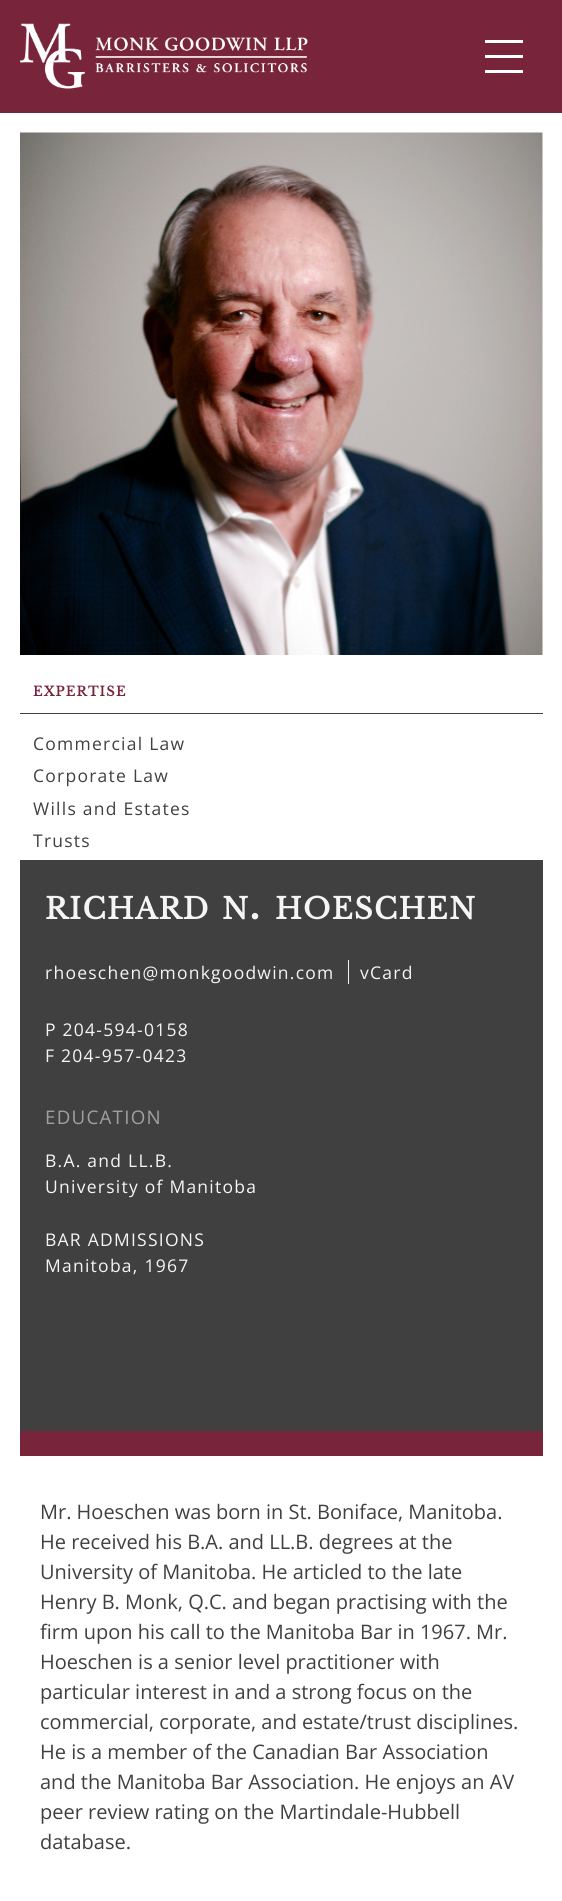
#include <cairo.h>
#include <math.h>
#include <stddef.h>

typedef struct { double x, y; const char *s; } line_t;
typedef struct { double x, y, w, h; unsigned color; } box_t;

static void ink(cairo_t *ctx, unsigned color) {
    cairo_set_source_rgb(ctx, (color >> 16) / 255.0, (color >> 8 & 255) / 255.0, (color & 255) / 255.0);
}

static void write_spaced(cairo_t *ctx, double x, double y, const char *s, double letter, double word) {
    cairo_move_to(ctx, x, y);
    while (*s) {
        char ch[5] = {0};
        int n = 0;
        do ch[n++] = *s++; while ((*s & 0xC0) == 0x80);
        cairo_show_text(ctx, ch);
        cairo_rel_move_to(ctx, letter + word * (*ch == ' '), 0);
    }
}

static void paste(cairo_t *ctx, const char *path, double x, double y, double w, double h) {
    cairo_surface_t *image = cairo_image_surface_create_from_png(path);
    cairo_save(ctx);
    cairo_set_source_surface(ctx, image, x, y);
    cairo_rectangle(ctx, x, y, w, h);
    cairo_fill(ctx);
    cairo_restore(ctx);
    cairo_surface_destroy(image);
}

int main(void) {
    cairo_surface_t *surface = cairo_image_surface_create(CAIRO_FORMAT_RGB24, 562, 1901);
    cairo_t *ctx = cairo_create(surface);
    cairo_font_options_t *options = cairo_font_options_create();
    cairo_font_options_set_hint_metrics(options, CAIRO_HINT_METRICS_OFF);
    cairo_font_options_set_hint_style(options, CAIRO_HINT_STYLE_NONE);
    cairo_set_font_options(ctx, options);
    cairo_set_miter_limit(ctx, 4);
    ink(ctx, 0xFFFFFF);
    cairo_paint(ctx);
    ink(ctx, 0x78253B);
    cairo_rectangle(ctx, 0, 0, 562, 113);
    cairo_fill(ctx);
    paste(ctx, "media/1.png", 20, 23, 288, 66);
    {
        static const box_t items[] = {
            {485, 40, 38, 3, 0xFFFFFF},
            {485, 55, 38, 3, 0xFFFFFF},
            {485, 70, 38, 3, 0xFFFFFF},
        };
        for (size_t i = 0; i < sizeof items / sizeof *items; i++) {
            ink(ctx, items[i].color);
            cairo_rectangle(ctx, items[i].x, items[i].y, items[i].w, items[i].h);
            cairo_fill(ctx);
        }
    }
    paste(ctx, "media/2.png", 20, 132, 523, 523);
    ink(ctx, 0x404040);
    cairo_rectangle(ctx, 20, 713, 523, 1);
    cairo_fill(ctx);
    cairo_select_font_face(ctx, "Libre Baskerville", CAIRO_FONT_SLANT_NORMAL, CAIRO_FONT_WEIGHT_BOLD);
    cairo_set_font_size(ctx, 13);
    ink(ctx, 0x78253B);
    write_spaced(ctx, 33, 696, "EXPERTISE", 1.25, 0);
    cairo_select_font_face(ctx, "Open Sans", CAIRO_FONT_SLANT_NORMAL, CAIRO_FONT_WEIGHT_NORMAL);
    cairo_set_font_size(ctx, 17.5);
    ink(ctx, 0x404040);
    {
        static const line_t items[] = {
            {33, 750, "Commercial Law"},
            {33, 782, "Corporate Law"},
            {33, 815, "Wills and Estates"},
            {33, 847, "Trusts"},
        };
        for (size_t i = 0; i < sizeof items / sizeof *items; i++) {
            write_spaced(ctx, items[i].x, items[i].y, items[i].s, 1.25, 0);
        }
    }
    cairo_rectangle(ctx, 20, 860, 523, 571);
    cairo_fill(ctx);
    cairo_select_font_face(ctx, "Libre Baskerville", CAIRO_FONT_SLANT_NORMAL, CAIRO_FONT_WEIGHT_BOLD);
    cairo_set_font_size(ctx, 29);
    ink(ctx, 0xF5F5F5);
    write_spaced(ctx, 45, 919, "RICHARD", 1.25, 0);
    write_spaced(ctx, 222, 919, "N", 1.25, 0);
    cairo_set_font_size(ctx, 41);
    write_spaced(ctx, 249, 919, ".", 1.25, 0);
    cairo_set_font_size(ctx, 29);
    write_spaced(ctx, 275, 919, "HOESCHEN", 1.25, 0);
    cairo_select_font_face(ctx, "Open Sans", CAIRO_FONT_SLANT_NORMAL, CAIRO_FONT_WEIGHT_NORMAL);
    cairo_set_font_size(ctx, 17.5);
    write_spaced(ctx, 45, 979, "rhoeschen@monkgoodwin.com", 1.25, 0);
    cairo_rectangle(ctx, 348, 960, 1, 24);
    cairo_fill(ctx);
    {
        static const line_t items[] = {
            {360, 979, "vCard"},
            {45, 1036, "P 204-594-0158"},
            {45, 1062, "F 204-957-0423"},
        };
        for (size_t i = 0; i < sizeof items / sizeof *items; i++) {
            write_spaced(ctx, items[i].x, items[i].y, items[i].s, 1.25, 0);
        }
    }
    cairo_set_font_size(ctx, 18.75);
    ink(ctx, 0xA0A0A0);
    write_spaced(ctx, 45, 1124, "EDUCATION", 1.25, 0);
    cairo_set_font_size(ctx, 17.5);
    ink(ctx, 0xF5F5F5);
    {
        static const line_t items[] = {
            {45, 1167, "B.A. and LL.B."},
            {45, 1193, "University of Manitoba"},
            {45, 1246, "BAR ADMISSIONS"},
            {45, 1272, "Manitoba, 1967"},
        };
        for (size_t i = 0; i < sizeof items / sizeof *items; i++) {
            write_spaced(ctx, items[i].x, items[i].y, items[i].s, 1.25, 0);
        }
    }
    ink(ctx, 0x78253B);
    cairo_rectangle(ctx, 20, 1431, 523, 25);
    cairo_fill(ctx);
    cairo_set_font_size(ctx, 20);
    ink(ctx, 0x404040);
    {
        static const line_t items[] = {
            {40, 1519, "Mr. Hoeschen was born in St. Boniface, Manitoba."},
            {40, 1549, "He received his B.A. and LL.B. degrees at the"},
            {40, 1579, "University of Manitoba. He articled to the late"},
            {40, 1609, "Henry B. Monk, Q.C. and began practising with the"},
            {40, 1639, "firm upon his call to the Manitoba Bar in 1967. Mr."},
            {40, 1669, "Hoeschen is a senior level practitioner with"},
            {40, 1699, "particular interest in and a strong focus on the"},
            {40, 1729, "commercial, corporate, and estate/trust disciplines."},
            {40, 1759, "He is a member of the Canadian Bar Association"},
            {40, 1789, "and the Manitoba Bar Association. He enjoys an AV"},
            {40, 1819, "peer review rating on the Martindale-Hubbell"},
            {40, 1849, "database."},
        };
        for (size_t i = 0; i < sizeof items / sizeof *items; i++) {
            cairo_move_to(ctx, items[i].x, items[i].y);
            cairo_show_text(ctx, items[i].s);
        }
    }
    cairo_surface_write_to_png(surface, "image.png");
    cairo_font_options_destroy(options);
    cairo_destroy(ctx);
    cairo_surface_destroy(surface);
    return 0;
}
